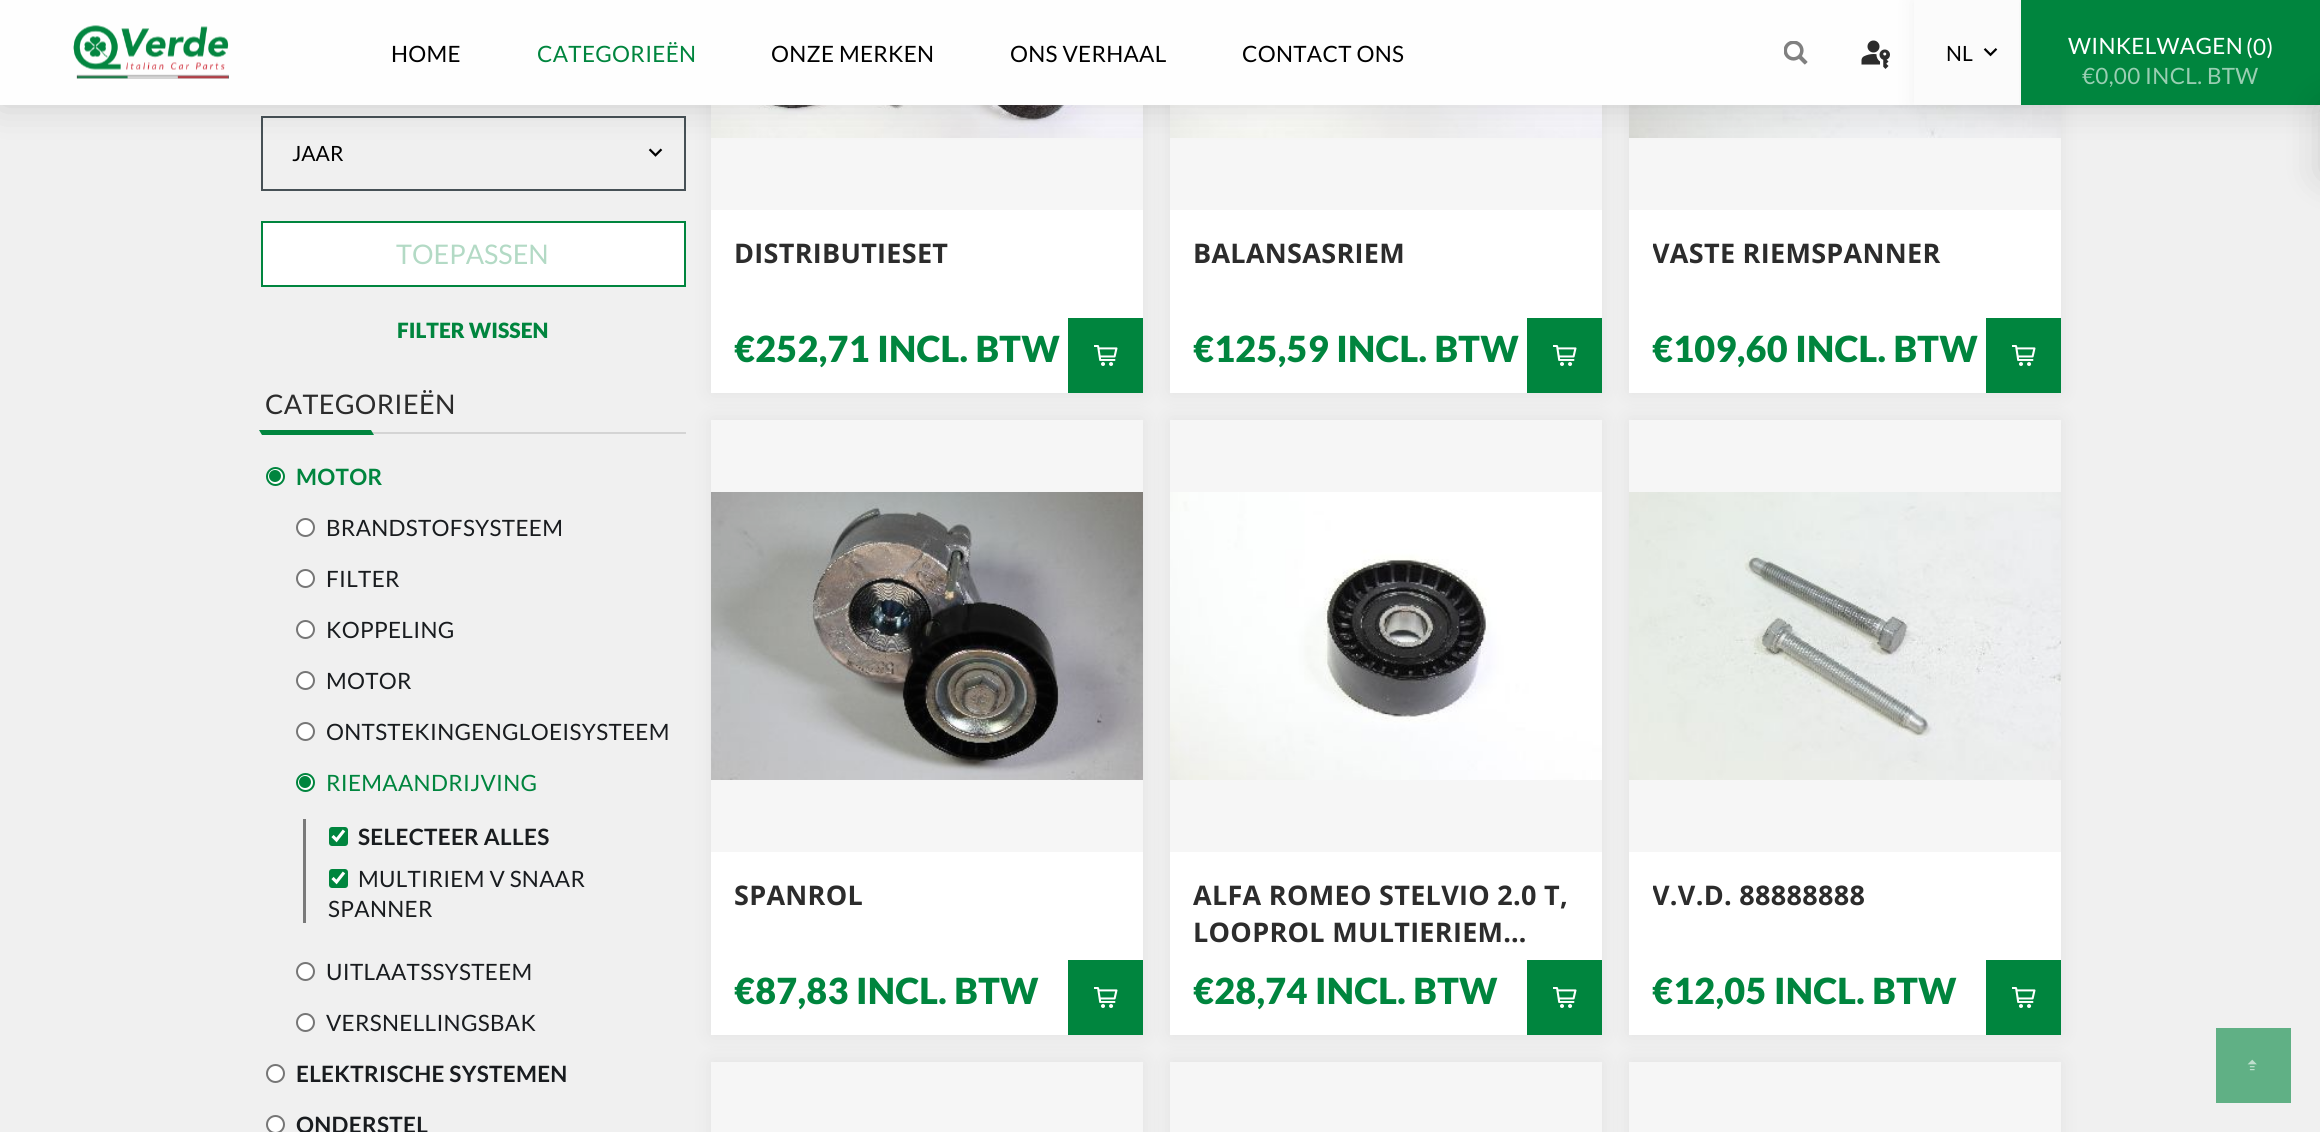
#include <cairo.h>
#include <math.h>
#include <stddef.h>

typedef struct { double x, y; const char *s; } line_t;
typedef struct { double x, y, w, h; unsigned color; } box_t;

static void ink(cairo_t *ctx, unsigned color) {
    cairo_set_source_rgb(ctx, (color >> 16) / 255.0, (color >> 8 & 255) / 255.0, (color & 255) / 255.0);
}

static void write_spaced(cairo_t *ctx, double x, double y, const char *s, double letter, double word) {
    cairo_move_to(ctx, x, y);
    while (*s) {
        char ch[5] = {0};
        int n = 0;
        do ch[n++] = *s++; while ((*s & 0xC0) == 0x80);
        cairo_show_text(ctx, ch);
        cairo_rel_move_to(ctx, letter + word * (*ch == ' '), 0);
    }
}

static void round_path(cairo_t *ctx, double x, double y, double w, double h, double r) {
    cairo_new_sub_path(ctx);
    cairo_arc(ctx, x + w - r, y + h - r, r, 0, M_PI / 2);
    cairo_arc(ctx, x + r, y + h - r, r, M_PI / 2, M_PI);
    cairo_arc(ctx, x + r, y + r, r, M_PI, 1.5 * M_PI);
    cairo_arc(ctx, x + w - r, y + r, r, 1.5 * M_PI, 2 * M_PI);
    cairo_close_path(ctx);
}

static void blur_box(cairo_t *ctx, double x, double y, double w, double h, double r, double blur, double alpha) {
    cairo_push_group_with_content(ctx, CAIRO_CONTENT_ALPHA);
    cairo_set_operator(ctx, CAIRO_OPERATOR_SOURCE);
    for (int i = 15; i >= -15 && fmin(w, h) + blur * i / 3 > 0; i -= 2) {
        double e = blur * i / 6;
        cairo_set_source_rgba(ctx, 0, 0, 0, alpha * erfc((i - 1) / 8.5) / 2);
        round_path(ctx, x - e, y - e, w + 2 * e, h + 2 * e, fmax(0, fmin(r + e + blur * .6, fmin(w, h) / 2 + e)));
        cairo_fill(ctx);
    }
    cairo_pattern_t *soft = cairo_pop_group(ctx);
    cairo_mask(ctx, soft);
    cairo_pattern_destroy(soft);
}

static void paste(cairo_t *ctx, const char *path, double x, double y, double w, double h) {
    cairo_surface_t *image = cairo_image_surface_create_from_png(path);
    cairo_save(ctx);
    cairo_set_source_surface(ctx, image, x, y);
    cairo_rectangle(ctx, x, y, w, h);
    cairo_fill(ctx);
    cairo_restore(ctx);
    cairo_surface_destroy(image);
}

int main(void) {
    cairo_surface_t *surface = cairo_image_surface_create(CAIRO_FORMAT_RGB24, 2320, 1132);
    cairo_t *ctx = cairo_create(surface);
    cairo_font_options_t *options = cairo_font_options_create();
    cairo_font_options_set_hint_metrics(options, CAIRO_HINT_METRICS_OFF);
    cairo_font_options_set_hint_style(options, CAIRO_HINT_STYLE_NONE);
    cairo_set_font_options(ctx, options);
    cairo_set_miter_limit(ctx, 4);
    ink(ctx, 0xF0F0F0);
    cairo_paint(ctx);
    ink(ctx, 0x000000);
    blur_box(ctx, 711, -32, 432, 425, 0, 10.5, 0.06);
    cairo_rectangle(ctx, 262, 117, 423, 73);
    ink(ctx, 0x475156);
    cairo_stroke(ctx);
    paste(ctx, "media/5.png", 648, 148, 15, 9);
    ink(ctx, 0xFFFFFF);
    cairo_rectangle(ctx, 711, 210, 432, 183);
    cairo_fill(ctx);
    ink(ctx, 0x000000);
    blur_box(ctx, 1170, -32, 432, 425, 0, 10.5, 0.06);
    ink(ctx, 0xF6F6F6);
    cairo_rectangle(ctx, 711, 105, 432, 105);
    cairo_fill(ctx);
    paste(ctx, "media/6.png", 711, 105, 432, 33);
    ink(ctx, 0xFFFFFF);
    cairo_rectangle(ctx, 1170, 210, 432, 183);
    cairo_fill(ctx);
    ink(ctx, 0x000000);
    blur_box(ctx, 1629, -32, 432, 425, 0, 10.5, 0.06);
    ink(ctx, 0xF6F6F6);
    cairo_rectangle(ctx, 1170, 105, 432, 105);
    cairo_fill(ctx);
    paste(ctx, "media/8.png", 1170, 105, 432, 33);
    cairo_rectangle(ctx, 1629, 105, 432, 105);
    cairo_fill(ctx);
    paste(ctx, "media/9.png", 1629, 105, 432, 33);
    ink(ctx, 0x000000);
    blur_box(ctx, 0, 0, 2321, 105, 0, 19, 0.15);
    ink(ctx, 0xFEFEFE);
    cairo_rectangle(ctx, 0, 0, 2021, 105);
    cairo_fill(ctx);
    paste(ctx, "media/1.png", 73, 25, 156, 54);
    cairo_select_font_face(ctx, "Lato", CAIRO_FONT_SLANT_NORMAL, CAIRO_FONT_WEIGHT_NORMAL);
    cairo_set_font_size(ctx, 22.5);
    ink(ctx, 0x000000);
    write_spaced(ctx, 391, 62, "HOME", 0.3, 0);
    ink(ctx, 0x00853E);
    write_spaced(ctx, 537, 62, "CATEGORIEËN", 0.3, 0);
    ink(ctx, 0x000000);
    {
        static const line_t items[] = {
            {771, 62, "ONZE MERKEN"},
            {1010, 62, "ONS VERHAAL"},
            {1242, 62, "CONTACT ONS"},
        };
        for (size_t i = 0; i < sizeof items / sizeof *items; i++) {
            write_spaced(ctx, items[i].x, items[i].y, items[i].s, 0.3, 0);
        }
    }
    paste(ctx, "media/2.png", 1784, 41, 24, 24);
    ink(ctx, 0x000000);
    blur_box(ctx, 1914, 0, 105, 105, 0, 10.5, 0.06);
    paste(ctx, "media/3.png", 1861, 40, 29, 29);
    ink(ctx, 0xFBFBFB);
    cairo_rectangle(ctx, 1914, 0, 105, 105);
    cairo_fill(ctx);
    cairo_set_font_size(ctx, 21);
    ink(ctx, 0x000000);
    cairo_move_to(ctx, 1946, 61);
    cairo_show_text(ctx, "NL");
    paste(ctx, "media/4.png", 1983, 48, 15, 9);
    ink(ctx, 0x00853E);
    cairo_rectangle(ctx, 2021, 0, 299, 105);
    cairo_fill(ctx);
    cairo_set_font_size(ctx, 22.5);
    ink(ctx, 0xFFFFFF);
    write_spaced(ctx, 2068, 54, "WINKELWAGEN", 0.3, 0);
    write_spaced(ctx, 2246, 55, "(0)", 0.3, 0);
    ink(ctx, 0x99CEB2);
    write_spaced(ctx, 2082, 84, "€0,00 INCL. BTW", 0.3, 0);
    ink(ctx, 0x000000);
    blur_box(ctx, 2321, 105, 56, 71, 0, 19, 0.15);
    cairo_set_font_size(ctx, 21);
    ink(ctx, 0x000000);
    cairo_move_to(ctx, 292, 161);
    cairo_show_text(ctx, "JAAR");
    ink(ctx, 0xFFFFFF);
    cairo_rectangle(ctx, 262, 222, 423, 64);
    cairo_fill_preserve(ctx);
    ink(ctx, 0x00853E);
    cairo_stroke(ctx);
    cairo_set_font_size(ctx, 27);
    ink(ctx, 0xB3DAC5);
    cairo_move_to(ctx, 396, 264);
    cairo_show_text(ctx, "TOEPASSEN");
    cairo_select_font_face(ctx, "Lato Black", CAIRO_FONT_SLANT_NORMAL, CAIRO_FONT_WEIGHT_NORMAL);
    cairo_set_font_size(ctx, 21);
    ink(ctx, 0x00853E);
    cairo_move_to(ctx, 397, 338);
    cairo_show_text(ctx, "FILTER WISSEN");
    ink(ctx, 0x000000);
    blur_box(ctx, 711, 420, 432, 615, 0, 10.5, 0.06);
    ink(ctx, 0xD4D4D4);
    cairo_rectangle(ctx, 261, 432, 425, 2);
    cairo_fill(ctx);
    cairo_select_font_face(ctx, "Lato", CAIRO_FONT_SLANT_NORMAL, CAIRO_FONT_WEIGHT_NORMAL);
    cairo_set_font_size(ctx, 27);
    ink(ctx, 0x2C2C2C);
    write_spaced(ctx, 265, 414, "CATEGORIEËN", 0.3, 0);
    ink(ctx, 0x00853E);
    cairo_new_path(ctx);
    cairo_move_to(ctx, 259, 430);
    cairo_line_to(ctx, 371, 430);
    cairo_line_to(ctx, 374, 435);
    cairo_line_to(ctx, 262, 435);
    cairo_close_path(ctx);
    cairo_fill(ctx);
    ink(ctx, 0xFFFFFF);
    cairo_arc(ctx, 275.5, 476.5, 8.5, 0, 2 * M_PI);
    cairo_fill_preserve(ctx);
    ink(ctx, 0x00853E);
    cairo_stroke(ctx);
    cairo_arc(ctx, 275, 476, 6, 0, 2 * M_PI);
    cairo_fill(ctx);
    cairo_select_font_face(ctx, "Lato", CAIRO_FONT_SLANT_NORMAL, CAIRO_FONT_WEIGHT_BOLD);
    cairo_set_font_size(ctx, 22.5);
    write_spaced(ctx, 296, 485, "MOTOR", 0.3, 0);
    ink(ctx, 0xFFFFFF);
    cairo_new_path(ctx);
    cairo_arc(ctx, 305.5, 527.5, 8.5, 0, 2 * M_PI);
    cairo_fill_preserve(ctx);
    ink(ctx, 0x767676);
    cairo_stroke(ctx);
    cairo_select_font_face(ctx, "Lato", CAIRO_FONT_SLANT_NORMAL, CAIRO_FONT_WEIGHT_NORMAL);
    ink(ctx, 0x191C1F);
    write_spaced(ctx, 326, 536, "BRANDSTOFSYSTEEM", 0.3, 0);
    ink(ctx, 0xFFFFFF);
    cairo_new_path(ctx);
    cairo_arc(ctx, 305.5, 578.5, 8.5, 0, 2 * M_PI);
    cairo_fill_preserve(ctx);
    ink(ctx, 0x767676);
    cairo_stroke(ctx);
    ink(ctx, 0x191C1F);
    write_spaced(ctx, 326, 587, "FILTER", 0.3, 0);
    ink(ctx, 0xFFFFFF);
    cairo_new_path(ctx);
    cairo_arc(ctx, 305.5, 629.5, 8.5, 0, 2 * M_PI);
    cairo_fill_preserve(ctx);
    ink(ctx, 0x767676);
    cairo_stroke(ctx);
    ink(ctx, 0x191C1F);
    write_spaced(ctx, 326, 638, "KOPPELING", 0.3, 0);
    ink(ctx, 0xFFFFFF);
    cairo_new_path(ctx);
    cairo_arc(ctx, 305.5, 680.5, 8.5, 0, 2 * M_PI);
    cairo_fill_preserve(ctx);
    ink(ctx, 0x767676);
    cairo_stroke(ctx);
    ink(ctx, 0x191C1F);
    write_spaced(ctx, 326, 689, "MOTOR", 0.3, 0);
    ink(ctx, 0xFFFFFF);
    cairo_new_path(ctx);
    cairo_arc(ctx, 305.5, 731.5, 8.5, 0, 2 * M_PI);
    cairo_fill_preserve(ctx);
    ink(ctx, 0x767676);
    cairo_stroke(ctx);
    ink(ctx, 0x191C1F);
    write_spaced(ctx, 326, 740, "ONTSTEKINGENGLOEISYSTEEM", 0.3, 0);
    ink(ctx, 0xFFFFFF);
    cairo_new_path(ctx);
    cairo_arc(ctx, 305.5, 782.5, 8.5, 0, 2 * M_PI);
    cairo_fill_preserve(ctx);
    ink(ctx, 0x00853E);
    cairo_stroke(ctx);
    cairo_arc(ctx, 305, 782, 6, 0, 2 * M_PI);
    cairo_fill(ctx);
    write_spaced(ctx, 326, 791, "RIEMAANDRIJVING", 0.3, 0);
    ink(ctx, 0x7A7A7A);
    cairo_rectangle(ctx, 303, 819, 3, 104);
    cairo_fill(ctx);
    ink(ctx, 0x00853E);
    round_path(ctx, 329, 827, 19, 19, 3);
    cairo_fill(ctx);
    cairo_new_path(ctx);
    cairo_move_to(ctx, 332.5, 836);
    cairo_line_to(ctx, 336.5, 840);
    cairo_line_to(ctx, 344, 830.5);
    ink(ctx, 0xFFFFFF);
    cairo_set_line_width(ctx, 3.1);
    cairo_stroke(ctx);
    cairo_select_font_face(ctx, "Lato", CAIRO_FONT_SLANT_NORMAL, CAIRO_FONT_WEIGHT_BOLD);
    ink(ctx, 0x191C1F);
    write_spaced(ctx, 358, 845, "SELECTEER ALLES", 0.3, 0);
    ink(ctx, 0x00853E);
    round_path(ctx, 329, 869, 19, 19, 3);
    cairo_fill(ctx);
    cairo_new_path(ctx);
    cairo_move_to(ctx, 332.5, 878);
    cairo_line_to(ctx, 336.5, 882);
    cairo_line_to(ctx, 344, 872.5);
    ink(ctx, 0xFFFFFF);
    cairo_stroke(ctx);
    cairo_select_font_face(ctx, "Lato", CAIRO_FONT_SLANT_NORMAL, CAIRO_FONT_WEIGHT_NORMAL);
    ink(ctx, 0x191C1F);
    write_spaced(ctx, 358, 887, "MULTIRIEM V SNAAR", 0.3, 0);
    write_spaced(ctx, 328, 917, "SPANNER", 0.3, 0);
    ink(ctx, 0xFFFFFF);
    cairo_new_path(ctx);
    cairo_arc(ctx, 305.5, 971.5, 8.5, 0, 2 * M_PI);
    cairo_fill_preserve(ctx);
    ink(ctx, 0x767676);
    cairo_set_line_width(ctx, 2);
    cairo_stroke(ctx);
    ink(ctx, 0x191C1F);
    write_spaced(ctx, 326, 980, "UITLAATSSYSTEEM", 0.3, 0);
    ink(ctx, 0xFFFFFF);
    cairo_new_path(ctx);
    cairo_arc(ctx, 305.5, 1022.5, 8.5, 0, 2 * M_PI);
    cairo_fill_preserve(ctx);
    ink(ctx, 0x767676);
    cairo_stroke(ctx);
    ink(ctx, 0x191C1F);
    write_spaced(ctx, 326, 1031, "VERSNELLINGSBAK", 0.3, 0);
    ink(ctx, 0xFFFFFF);
    cairo_new_path(ctx);
    cairo_arc(ctx, 275.5, 1073.5, 8.5, 0, 2 * M_PI);
    cairo_fill_preserve(ctx);
    ink(ctx, 0x767676);
    cairo_stroke(ctx);
    cairo_select_font_face(ctx, "Lato", CAIRO_FONT_SLANT_NORMAL, CAIRO_FONT_WEIGHT_BOLD);
    ink(ctx, 0x191C1F);
    write_spaced(ctx, 296, 1082, "ELEKTRISCHE SYSTEMEN", 0.3, 0);
    ink(ctx, 0xFFFFFF);
    cairo_new_path(ctx);
    cairo_arc(ctx, 275.5, 1124.5, 8.5, 0, 2 * M_PI);
    cairo_fill_preserve(ctx);
    ink(ctx, 0x767676);
    cairo_stroke(ctx);
    ink(ctx, 0x191C1F);
    write_spaced(ctx, 296, 1133, "ONDERSTEL", 0.3, 0);
    cairo_select_font_face(ctx, "Open Sans", CAIRO_FONT_SLANT_NORMAL, CAIRO_FONT_WEIGHT_BOLD);
    cairo_set_font_size(ctx, 27);
    ink(ctx, 0x2C2C2C);
    write_spaced(ctx, 734, 263, "DISTRIBUTIESET", 0.3, 0);
    cairo_select_font_face(ctx, "Lato Black", CAIRO_FONT_SLANT_NORMAL, CAIRO_FONT_WEIGHT_NORMAL);
    cairo_set_font_size(ctx, 36);
    ink(ctx, 0x00853E);
    write_spaced(ctx, 734, 362, "€252,71 INCL. BTW", 0.3, 0);
    ink(ctx, 0xFFFFFF);
    cairo_rectangle(ctx, 1629, 210, 432, 183);
    cairo_fill(ctx);
    cairo_rectangle(ctx, 711, 852, 432, 183);
    cairo_fill(ctx);
    ink(ctx, 0x000000);
    blur_box(ctx, 1170, 420, 432, 615, 0, 10.5, 0.06);
    ink(ctx, 0x00853E);
    cairo_rectangle(ctx, 1068, 318, 75, 75);
    cairo_fill(ctx);
    paste(ctx, "media/7.png", 1094, 345, 24, 21);
    cairo_select_font_face(ctx, "Open Sans", CAIRO_FONT_SLANT_NORMAL, CAIRO_FONT_WEIGHT_BOLD);
    cairo_set_font_size(ctx, 27);
    ink(ctx, 0x2C2C2C);
    write_spaced(ctx, 1193, 263, "BALANSASRIEM", 0.3, 0);
    cairo_select_font_face(ctx, "Lato Black", CAIRO_FONT_SLANT_NORMAL, CAIRO_FONT_WEIGHT_NORMAL);
    cairo_set_font_size(ctx, 36);
    ink(ctx, 0x00853E);
    write_spaced(ctx, 1193, 362, "€125,59 INCL. BTW", 0.3, 0);
    ink(ctx, 0xFFFFFF);
    cairo_rectangle(ctx, 1170, 852, 432, 183);
    cairo_fill(ctx);
    ink(ctx, 0x000000);
    blur_box(ctx, 1629, 420, 432, 615, 0, 10.5, 0.06);
    ink(ctx, 0x00853E);
    cairo_rectangle(ctx, 1527, 318, 75, 75);
    cairo_fill(ctx);
    paste(ctx, "media/7.png", 1553, 345, 24, 21);
    cairo_save(ctx);
    cairo_rectangle(ctx, 1653, 234, 384, 38);
    cairo_clip(ctx);
    cairo_select_font_face(ctx, "Open Sans", CAIRO_FONT_SLANT_NORMAL, CAIRO_FONT_WEIGHT_BOLD);
    cairo_set_font_size(ctx, 27);
    ink(ctx, 0x2C2C2C);
    write_spaced(ctx, 1652, 263, "VASTE RIEMSPANNER", 0.3, 0);
    cairo_restore(ctx);
    write_spaced(ctx, 1652, 362, "€109,60 INCL. BTW", 0.3, 0);
    cairo_rectangle(ctx, 1986, 318, 75, 75);
    cairo_fill(ctx);
    paste(ctx, "media/7.png", 2012, 345, 24, 21);
    ink(ctx, 0xF6F6F6);
    cairo_rectangle(ctx, 711, 420, 432, 432);
    cairo_fill(ctx);
    paste(ctx, "media/10.png", 711, 492, 432, 288);
    cairo_select_font_face(ctx, "Open Sans", CAIRO_FONT_SLANT_NORMAL, CAIRO_FONT_WEIGHT_BOLD);
    cairo_set_font_size(ctx, 27);
    ink(ctx, 0x2C2C2C);
    write_spaced(ctx, 734, 905, "SPANROL", 0.3, 0);
    cairo_select_font_face(ctx, "Lato Black", CAIRO_FONT_SLANT_NORMAL, CAIRO_FONT_WEIGHT_NORMAL);
    cairo_set_font_size(ctx, 36);
    ink(ctx, 0x00853E);
    write_spaced(ctx, 734, 1004, "€87,83 INCL. BTW", 0.3, 0);
    ink(ctx, 0x000000);
    blur_box(ctx, 711, 1062, 432, 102, 0, 10.5, 0.06);
    ink(ctx, 0xFFFFFF);
    cairo_rectangle(ctx, 1629, 852, 432, 183);
    cairo_fill(ctx);
    ink(ctx, 0x000000);
    blur_box(ctx, 1170, 1062, 432, 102, 0, 10.5, 0.06);
    ink(ctx, 0x00853E);
    cairo_rectangle(ctx, 1068, 960, 75, 75);
    cairo_fill(ctx);
    paste(ctx, "media/7.png", 1094, 987, 24, 21);
    ink(ctx, 0xF6F6F6);
    cairo_rectangle(ctx, 1170, 420, 432, 432);
    cairo_fill(ctx);
    paste(ctx, "media/11.png", 1170, 492, 432, 288);
    cairo_select_font_face(ctx, "Open Sans", CAIRO_FONT_SLANT_NORMAL, CAIRO_FONT_WEIGHT_BOLD);
    cairo_set_font_size(ctx, 27);
    ink(ctx, 0x2C2C2C);
    write_spaced(ctx, 1193, 905, "ALFA ROMEO STELVIO 2.0 T,", 0.3, 0);
    write_spaced(ctx, 1193, 942, "LOOPROL MULTIERIEM…", 0.3, 0);
    cairo_select_font_face(ctx, "Lato Black", CAIRO_FONT_SLANT_NORMAL, CAIRO_FONT_WEIGHT_NORMAL);
    cairo_set_font_size(ctx, 36);
    ink(ctx, 0x00853E);
    write_spaced(ctx, 1193, 1004, "€28,74 INCL. BTW", 0.3, 0);
    ink(ctx, 0x000000);
    blur_box(ctx, 1629, 1062, 432, 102, 0, 10.5, 0.06);
    ink(ctx, 0x00853E);
    cairo_rectangle(ctx, 1527, 960, 75, 75);
    cairo_fill(ctx);
    paste(ctx, "media/7.png", 1553, 987, 24, 21);
    ink(ctx, 0xF6F6F6);
    cairo_rectangle(ctx, 1629, 420, 432, 432);
    cairo_fill(ctx);
    paste(ctx, "media/12.png", 1629, 492, 432, 288);
    cairo_save(ctx);
    cairo_rectangle(ctx, 1653, 876, 384, 38);
    cairo_clip(ctx);
    cairo_select_font_face(ctx, "Open Sans", CAIRO_FONT_SLANT_NORMAL, CAIRO_FONT_WEIGHT_BOLD);
    cairo_set_font_size(ctx, 27);
    ink(ctx, 0x2C2C2C);
    write_spaced(ctx, 1652, 905, "V.V.D. 88888888", 0.3, 0);
    cairo_restore(ctx);
    ink(ctx, 0x00853E);
    write_spaced(ctx, 1652, 1004, "€12,05 INCL. BTW", 0.3, 0);
    cairo_rectangle(ctx, 1986, 960, 75, 75);
    cairo_fill(ctx);
    paste(ctx, "media/7.png", 2012, 987, 24, 21);
    {
        static const box_t items[] = {
            {711, 1062, 432, 70, 0xF6F6F6},
            {1170, 1062, 432, 70, 0xF6F6F6},
            {1629, 1062, 432, 70, 0xF6F6F6},
            {2216, 1028, 75, 75, 0x60B085},
        };
        for (size_t i = 0; i < sizeof items / sizeof *items; i++) {
            ink(ctx, items[i].color);
            cairo_rectangle(ctx, items[i].x, items[i].y, items[i].w, items[i].h);
            cairo_fill(ctx);
        }
    }
    paste(ctx, "media/13.png", 2247, 1059, 10, 12);
    cairo_surface_write_to_png(surface, "image.png");
    cairo_font_options_destroy(options);
    cairo_destroy(ctx);
    cairo_surface_destroy(surface);
    return 0;
}
